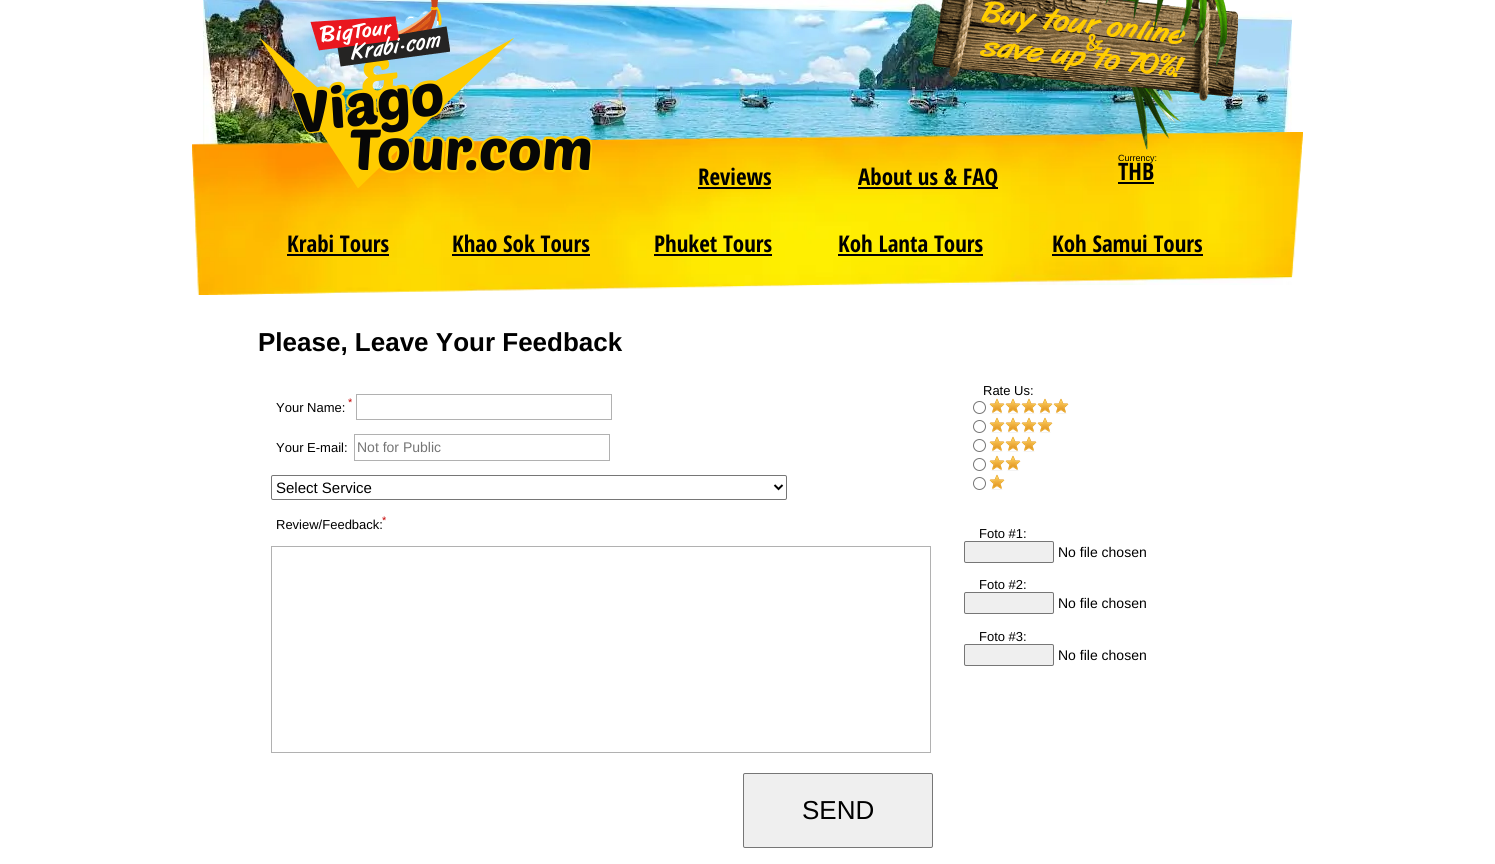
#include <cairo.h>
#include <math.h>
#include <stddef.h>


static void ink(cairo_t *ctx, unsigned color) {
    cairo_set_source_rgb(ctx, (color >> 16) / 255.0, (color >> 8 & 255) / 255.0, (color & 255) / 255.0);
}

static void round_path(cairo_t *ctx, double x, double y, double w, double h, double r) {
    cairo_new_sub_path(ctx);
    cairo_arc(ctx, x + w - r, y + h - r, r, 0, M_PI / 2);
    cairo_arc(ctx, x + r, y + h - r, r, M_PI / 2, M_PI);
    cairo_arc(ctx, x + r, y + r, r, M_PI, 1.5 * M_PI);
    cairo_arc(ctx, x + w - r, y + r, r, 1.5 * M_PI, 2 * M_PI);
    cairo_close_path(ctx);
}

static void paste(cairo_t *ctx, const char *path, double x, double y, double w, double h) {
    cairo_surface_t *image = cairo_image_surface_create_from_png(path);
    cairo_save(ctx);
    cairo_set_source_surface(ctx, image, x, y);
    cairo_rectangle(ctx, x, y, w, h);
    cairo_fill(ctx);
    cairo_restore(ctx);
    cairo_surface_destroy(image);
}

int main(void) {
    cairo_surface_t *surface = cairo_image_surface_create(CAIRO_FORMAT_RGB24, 1495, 864);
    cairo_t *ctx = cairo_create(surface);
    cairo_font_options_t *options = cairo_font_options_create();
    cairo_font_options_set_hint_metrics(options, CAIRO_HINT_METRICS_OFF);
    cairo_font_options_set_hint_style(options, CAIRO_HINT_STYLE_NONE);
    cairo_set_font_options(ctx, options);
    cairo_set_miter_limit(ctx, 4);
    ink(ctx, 0xFFFFFF);
    cairo_paint(ctx);
    paste(ctx, "media/1.png", 203, 0, 1089, 285);
    paste(ctx, "media/2.png", 192, 132, 1111, 163);
    paste(ctx, "media/3.png", 259, 0, 333, 188);
    paste(ctx, "media/4.png", 932, 0, 306, 150);
    cairo_select_font_face(ctx, "Open Sans Condensed", CAIRO_FONT_SLANT_NORMAL, CAIRO_FONT_WEIGHT_BOLD);
    cairo_set_font_size(ctx, 23);
    ink(ctx, 0x000000);
    cairo_move_to(ctx, 698, 185);
    cairo_show_text(ctx, "Reviews");
    cairo_rectangle(ctx, 698, 187, 73, 2);
    cairo_fill(ctx);
    cairo_rectangle(ctx, 858, 187, 140, 2);
    cairo_fill(ctx);
    cairo_move_to(ctx, 858, 185);
    cairo_show_text(ctx, "About us & FAQ");
    cairo_select_font_face(ctx, "Liberation Sans", CAIRO_FONT_SLANT_NORMAL, CAIRO_FONT_WEIGHT_NORMAL);
    cairo_set_font_size(ctx, 9);
    cairo_move_to(ctx, 1118, 161);
    cairo_show_text(ctx, "Currency:");
    cairo_select_font_face(ctx, "Open Sans Condensed", CAIRO_FONT_SLANT_NORMAL, CAIRO_FONT_WEIGHT_BOLD);
    cairo_set_font_size(ctx, 24);
    cairo_move_to(ctx, 1118, 180);
    cairo_show_text(ctx, "THB");
    cairo_rectangle(ctx, 1118, 182, 36, 2);
    cairo_fill(ctx);
    cairo_set_font_size(ctx, 23);
    cairo_move_to(ctx, 287, 252);
    cairo_show_text(ctx, "Krabi Tours");
    cairo_rectangle(ctx, 287, 254, 102, 2);
    cairo_fill(ctx);
    cairo_move_to(ctx, 452, 252);
    cairo_show_text(ctx, "Khao Sok Tours");
    cairo_rectangle(ctx, 452, 254, 138, 2);
    cairo_fill(ctx);
    cairo_move_to(ctx, 654, 252);
    cairo_show_text(ctx, "Phuket Tours");
    cairo_rectangle(ctx, 654, 254, 118, 2);
    cairo_fill(ctx);
    cairo_move_to(ctx, 838, 252);
    cairo_show_text(ctx, "Koh Lanta Tours");
    cairo_rectangle(ctx, 838, 254, 145, 2);
    cairo_fill(ctx);
    cairo_move_to(ctx, 1052, 252);
    cairo_show_text(ctx, "Koh Samui Tours");
    cairo_rectangle(ctx, 1052, 254, 151, 2);
    cairo_fill(ctx);
    cairo_select_font_face(ctx, "Liberation Sans", CAIRO_FONT_SLANT_NORMAL, CAIRO_FONT_WEIGHT_BOLD);
    cairo_set_font_size(ctx, 26);
    cairo_move_to(ctx, 258, 351);
    cairo_show_text(ctx, "Please, Leave Your Feedback");
    cairo_select_font_face(ctx, "Liberation Sans", CAIRO_FONT_SLANT_NORMAL, CAIRO_FONT_WEIGHT_NORMAL);
    cairo_set_font_size(ctx, 11);
    ink(ctx, 0xC50000);
    cairo_move_to(ctx, 348, 406);
    cairo_show_text(ctx, "*");
    cairo_rectangle(ctx, 356.5, 394.5, 255, 25);
    ink(ctx, 0xB1B1B1);
    cairo_set_line_width(ctx, 1);
    cairo_stroke(ctx);
    cairo_set_font_size(ctx, 13);
    ink(ctx, 0x000000);
    cairo_move_to(ctx, 276, 412);
    cairo_show_text(ctx, "Your Name:");
    cairo_move_to(ctx, 276, 452);
    cairo_show_text(ctx, "Your E-mail:");
    cairo_rectangle(ctx, 354.5, 434.5, 255, 26);
    ink(ctx, 0xB1B1B1);
    cairo_stroke(ctx);
    cairo_set_font_size(ctx, 14);
    ink(ctx, 0x757575);
    cairo_move_to(ctx, 357, 452);
    cairo_show_text(ctx, "Not for Public");
    round_path(ctx, 271.5, 475.5, 515, 24, 1.5);
    ink(ctx, 0x767676);
    cairo_stroke(ctx);
    cairo_new_path(ctx);
    cairo_move_to(ctx, 774.5, 485);
    cairo_line_to(ctx, 778.5, 489);
    cairo_line_to(ctx, 782.5, 485);
    ink(ctx, 0x000000);
    cairo_set_line_width(ctx, 2);
    cairo_stroke(ctx);
    cairo_set_font_size(ctx, 15);
    cairo_move_to(ctx, 276, 493);
    cairo_show_text(ctx, "Select Service");
    cairo_set_font_size(ctx, 11);
    ink(ctx, 0xC50000);
    cairo_move_to(ctx, 382, 524);
    cairo_show_text(ctx, "*");
    cairo_set_font_size(ctx, 13);
    ink(ctx, 0x000000);
    cairo_move_to(ctx, 276, 529);
    cairo_show_text(ctx, "Review/Feedback:");
    cairo_rectangle(ctx, 271.5, 546.5, 659, 206);
    ink(ctx, 0xB1B1B1);
    cairo_set_line_width(ctx, 1);
    cairo_stroke(ctx);
    ink(ctx, 0xEFEFEF);
    round_path(ctx, 743.5, 773.5, 189, 74, 1.5);
    cairo_fill_preserve(ctx);
    ink(ctx, 0x767676);
    cairo_stroke(ctx);
    cairo_set_font_size(ctx, 26);
    ink(ctx, 0x000000);
    cairo_move_to(ctx, 802, 819);
    cairo_show_text(ctx, "SEND");
    cairo_set_font_size(ctx, 13);
    cairo_move_to(ctx, 983, 395);
    cairo_show_text(ctx, "Rate Us:");
    cairo_new_path(ctx);
    cairo_arc(ctx, 979.5, 407.5, 6, 0, 2 * M_PI);
    ink(ctx, 0x767676);
    cairo_stroke(ctx);
    paste(ctx, "media/5.png", 989, 398, 16, 16);
    paste(ctx, "media/5.png", 1005, 398, 16, 16);
    paste(ctx, "media/5.png", 1021, 398, 16, 16);
    paste(ctx, "media/5.png", 1037, 398, 16, 16);
    paste(ctx, "media/5.png", 1053, 398, 16, 16);
    cairo_arc(ctx, 979.5, 426.5, 6, 0, 2 * M_PI);
    cairo_stroke(ctx);
    paste(ctx, "media/5.png", 989, 417, 16, 16);
    paste(ctx, "media/5.png", 1005, 417, 16, 16);
    paste(ctx, "media/5.png", 1021, 417, 16, 16);
    paste(ctx, "media/5.png", 1037, 417, 16, 16);
    cairo_arc(ctx, 979.5, 445.5, 6, 0, 2 * M_PI);
    cairo_stroke(ctx);
    paste(ctx, "media/5.png", 989, 436, 16, 16);
    paste(ctx, "media/5.png", 1005, 436, 16, 16);
    paste(ctx, "media/5.png", 1021, 436, 16, 16);
    cairo_arc(ctx, 979.5, 464.5, 6, 0, 2 * M_PI);
    cairo_stroke(ctx);
    paste(ctx, "media/5.png", 989, 455, 16, 16);
    paste(ctx, "media/5.png", 1005, 455, 16, 16);
    cairo_arc(ctx, 979.5, 483.5, 6, 0, 2 * M_PI);
    cairo_stroke(ctx);
    paste(ctx, "media/5.png", 989, 474, 16, 16);
    ink(ctx, 0x000000);
    cairo_move_to(ctx, 979, 538);
    cairo_show_text(ctx, "Foto #1:");
    ink(ctx, 0xEFEFEF);
    round_path(ctx, 964.5, 541.5, 89, 21, 1.5);
    cairo_fill_preserve(ctx);
    ink(ctx, 0x767676);
    cairo_stroke(ctx);
    cairo_set_font_size(ctx, 14);
    ink(ctx, 0x000000);
    cairo_move_to(ctx, 1058, 557);
    cairo_show_text(ctx, "No file chosen");
    cairo_set_font_size(ctx, 13);
    cairo_move_to(ctx, 979, 589);
    cairo_show_text(ctx, "Foto #2:");
    ink(ctx, 0xEFEFEF);
    round_path(ctx, 964.5, 592.5, 89, 21, 1.5);
    cairo_fill_preserve(ctx);
    ink(ctx, 0x767676);
    cairo_stroke(ctx);
    cairo_set_font_size(ctx, 14);
    ink(ctx, 0x000000);
    cairo_move_to(ctx, 1058, 608);
    cairo_show_text(ctx, "No file chosen");
    cairo_set_font_size(ctx, 13);
    cairo_move_to(ctx, 979, 641);
    cairo_show_text(ctx, "Foto #3:");
    ink(ctx, 0xEFEFEF);
    round_path(ctx, 964.5, 644.5, 89, 21, 1.5);
    cairo_fill_preserve(ctx);
    ink(ctx, 0x767676);
    cairo_stroke(ctx);
    cairo_set_font_size(ctx, 14);
    ink(ctx, 0x000000);
    cairo_move_to(ctx, 1058, 660);
    cairo_show_text(ctx, "No file chosen");
    cairo_surface_write_to_png(surface, "image.png");
    cairo_font_options_destroy(options);
    cairo_destroy(ctx);
    cairo_surface_destroy(surface);
    return 0;
}
